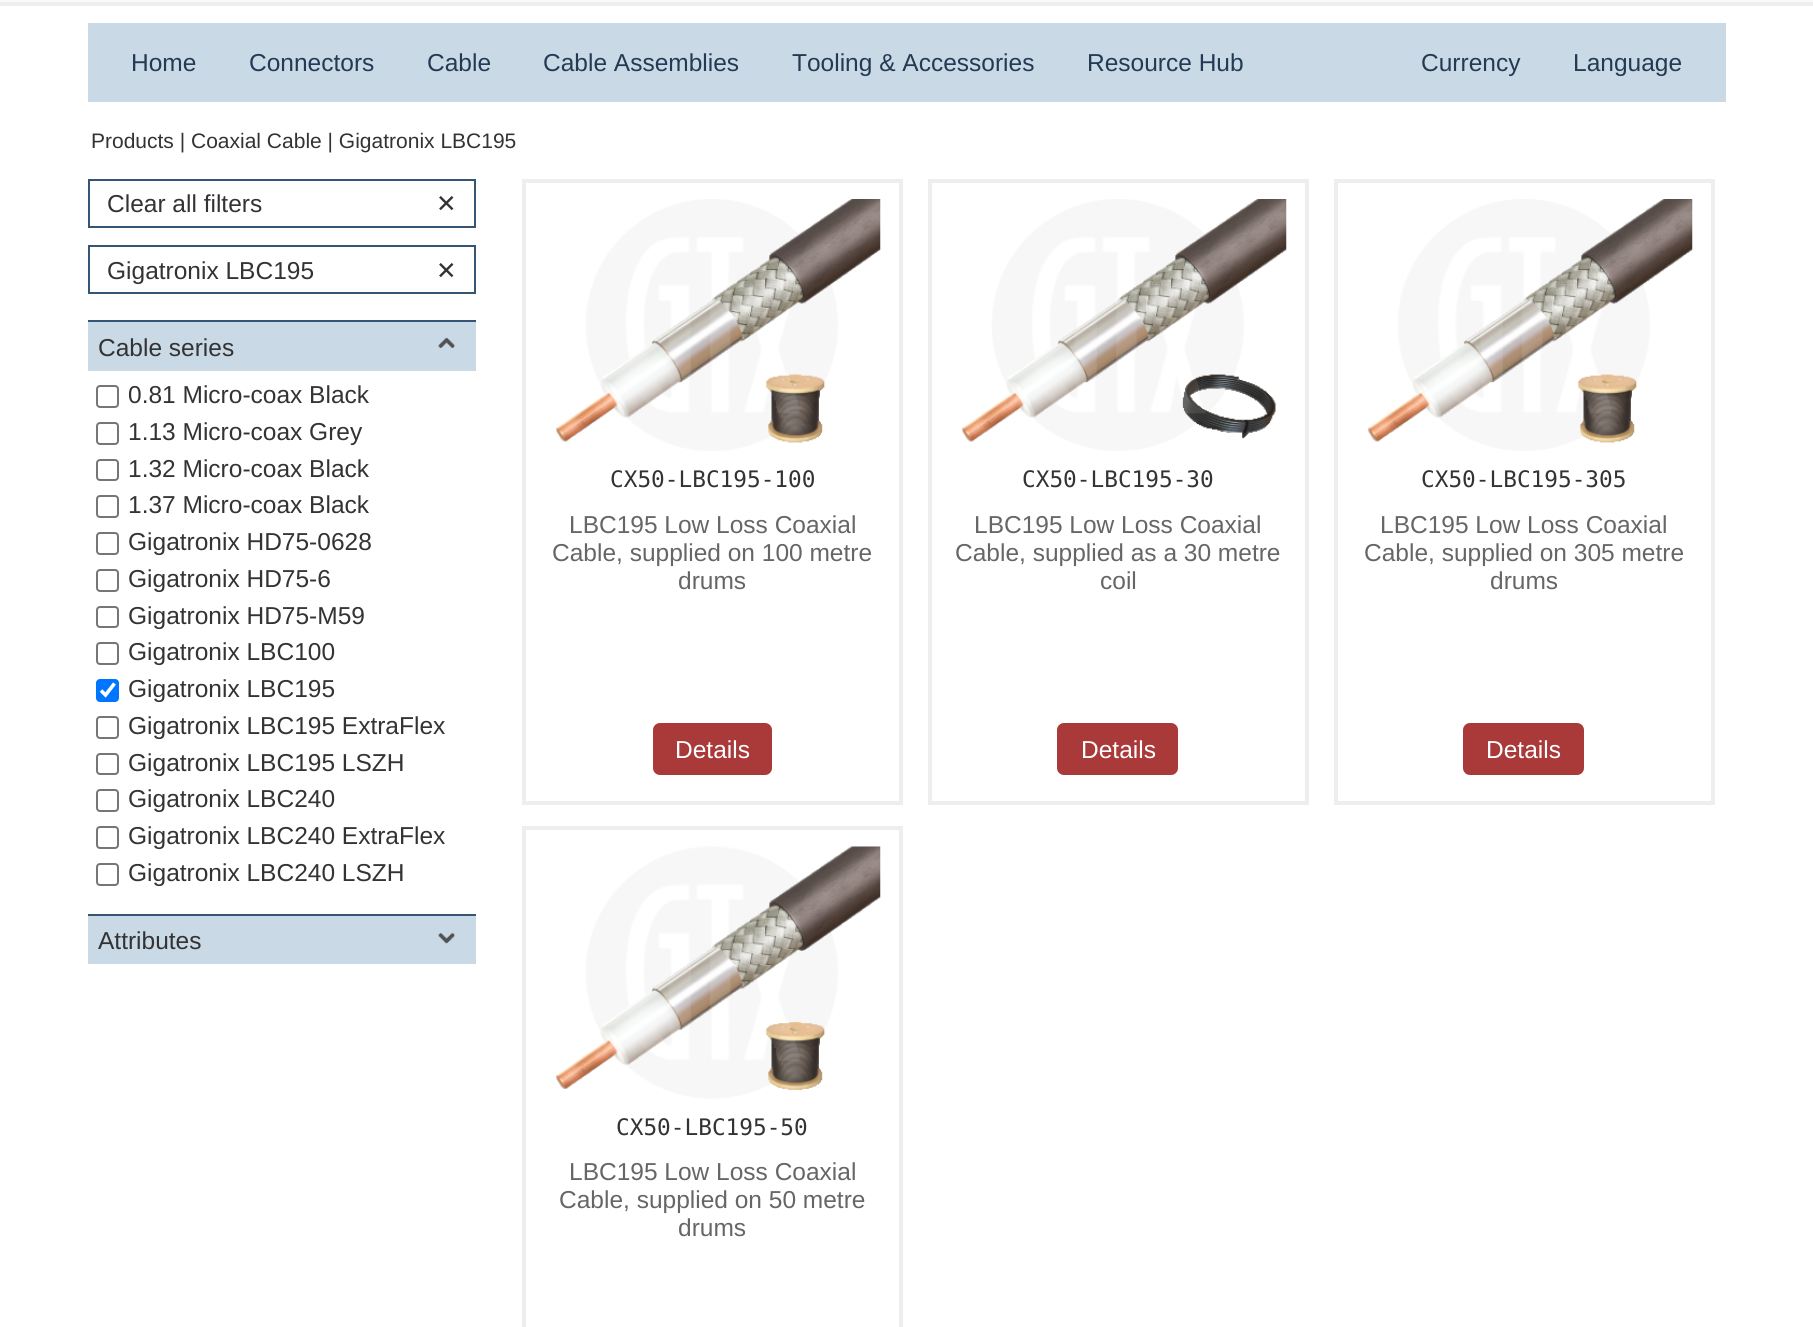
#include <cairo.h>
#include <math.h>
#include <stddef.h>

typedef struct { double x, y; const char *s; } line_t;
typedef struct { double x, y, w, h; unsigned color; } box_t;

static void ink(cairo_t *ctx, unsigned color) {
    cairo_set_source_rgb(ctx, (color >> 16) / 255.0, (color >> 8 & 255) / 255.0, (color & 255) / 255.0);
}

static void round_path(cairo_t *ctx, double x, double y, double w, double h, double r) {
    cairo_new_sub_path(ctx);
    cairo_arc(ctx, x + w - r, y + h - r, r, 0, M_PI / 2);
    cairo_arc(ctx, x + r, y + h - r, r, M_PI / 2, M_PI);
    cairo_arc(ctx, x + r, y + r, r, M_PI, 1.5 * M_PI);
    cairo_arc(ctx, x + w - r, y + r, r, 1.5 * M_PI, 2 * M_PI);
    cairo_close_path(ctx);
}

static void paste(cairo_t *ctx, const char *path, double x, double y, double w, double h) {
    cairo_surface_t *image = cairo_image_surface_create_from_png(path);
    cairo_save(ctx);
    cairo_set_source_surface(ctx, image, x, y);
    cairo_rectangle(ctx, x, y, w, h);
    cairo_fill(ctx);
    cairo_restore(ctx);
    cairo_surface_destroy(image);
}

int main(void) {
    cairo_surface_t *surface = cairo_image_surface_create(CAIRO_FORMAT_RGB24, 1813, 1327);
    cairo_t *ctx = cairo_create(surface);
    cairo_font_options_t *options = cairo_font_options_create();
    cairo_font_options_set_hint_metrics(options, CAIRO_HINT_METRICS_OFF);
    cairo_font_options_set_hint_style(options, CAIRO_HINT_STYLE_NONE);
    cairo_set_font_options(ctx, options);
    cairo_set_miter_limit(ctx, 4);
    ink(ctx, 0xFFFFFF);
    cairo_paint(ctx);
    {
        static const box_t items[] = {
            {0, 0, 1813, 2, 0xF9F9F9},
            {0, 2, 1813, 4, 0xEEEEEE},
            {88, 23, 1638, 79, 0xC9D9E5},
        };
        for (size_t i = 0; i < sizeof items / sizeof *items; i++) {
            ink(ctx, items[i].color);
            cairo_rectangle(ctx, items[i].x, items[i].y, items[i].w, items[i].h);
            cairo_fill(ctx);
        }
    }
    cairo_select_font_face(ctx, "Liberation Sans", CAIRO_FONT_SLANT_NORMAL, CAIRO_FONT_WEIGHT_NORMAL);
    cairo_set_font_size(ctx, 24.5);
    ink(ctx, 0x243A54);
    {
        static const line_t items[] = {
            {131, 71, "Home"},
            {249, 71, "Connectors"},
            {427, 71, "Cable"},
            {543, 71, "Cable Assemblies"},
            {792, 71, "Tooling & Accessories"},
            {1087, 71, "Resource Hub"},
            {1421, 71, "Currency"},
            {1573, 71, "Language"},
        };
        for (size_t i = 0; i < sizeof items / sizeof *items; i++) {
            cairo_move_to(ctx, items[i].x, items[i].y);
            cairo_show_text(ctx, items[i].s);
        }
    }
    cairo_set_font_size(ctx, 21);
    ink(ctx, 0x333333);
    cairo_move_to(ctx, 91, 148);
    cairo_show_text(ctx, "Products | Coaxial Cable | Gigatronix LBC195");
    cairo_rectangle(ctx, 89, 180, 386, 47);
    ink(ctx, 0x365473);
    cairo_stroke(ctx);
    cairo_set_font_size(ctx, 24.5);
    ink(ctx, 0x333333);
    cairo_move_to(ctx, 107, 212);
    cairo_show_text(ctx, "Clear all filters");
    cairo_select_font_face(ctx, "DejaVu Sans", CAIRO_FONT_SLANT_NORMAL, CAIRO_FONT_WEIGHT_NORMAL);
    cairo_move_to(ctx, 436, 212);
    cairo_show_text(ctx, "✕");
    cairo_rectangle(ctx, 89, 246, 386, 47);
    ink(ctx, 0x365473);
    cairo_stroke(ctx);
    cairo_select_font_face(ctx, "Liberation Sans", CAIRO_FONT_SLANT_NORMAL, CAIRO_FONT_WEIGHT_NORMAL);
    ink(ctx, 0x333333);
    cairo_move_to(ctx, 107, 279);
    cairo_show_text(ctx, "Gigatronix LBC195");
    cairo_select_font_face(ctx, "DejaVu Sans", CAIRO_FONT_SLANT_NORMAL, CAIRO_FONT_WEIGHT_NORMAL);
    cairo_move_to(ctx, 436, 279);
    cairo_show_text(ctx, "✕");
    ink(ctx, 0xC9D9E5);
    cairo_rectangle(ctx, 88, 322, 388, 49);
    cairo_fill(ctx);
    ink(ctx, 0x365473);
    cairo_rectangle(ctx, 88, 320, 388, 2);
    cairo_fill(ctx);
    cairo_select_font_face(ctx, "Liberation Sans", CAIRO_FONT_SLANT_NORMAL, CAIRO_FONT_WEIGHT_NORMAL);
    ink(ctx, 0x333333);
    cairo_move_to(ctx, 98, 356);
    cairo_show_text(ctx, "Cable series");
    paste(ctx, "media/1.png", 438, 337, 17, 12);
    round_path(ctx, 97, 386, 21, 21, 3);
    ink(ctx, 0x767676);
    cairo_stroke(ctx);
    ink(ctx, 0x333333);
    cairo_move_to(ctx, 128, 403);
    cairo_show_text(ctx, "0.81 Micro-coax Black");
    round_path(ctx, 97, 423, 21, 21, 3);
    ink(ctx, 0x767676);
    cairo_stroke(ctx);
    ink(ctx, 0x333333);
    cairo_move_to(ctx, 128, 440);
    cairo_show_text(ctx, "1.13 Micro-coax Grey");
    round_path(ctx, 97, 460, 21, 20, 3);
    ink(ctx, 0x767676);
    cairo_stroke(ctx);
    ink(ctx, 0x333333);
    cairo_move_to(ctx, 128, 477);
    cairo_show_text(ctx, "1.32 Micro-coax Black");
    round_path(ctx, 97, 496, 21, 21, 3);
    ink(ctx, 0x767676);
    cairo_stroke(ctx);
    ink(ctx, 0x333333);
    cairo_move_to(ctx, 128, 513);
    cairo_show_text(ctx, "1.37 Micro-coax Black");
    round_path(ctx, 97, 533, 21, 21, 3);
    ink(ctx, 0x767676);
    cairo_stroke(ctx);
    ink(ctx, 0x333333);
    cairo_move_to(ctx, 128, 550);
    cairo_show_text(ctx, "Gigatronix HD75-0628");
    round_path(ctx, 97, 570, 21, 21, 3);
    ink(ctx, 0x767676);
    cairo_stroke(ctx);
    ink(ctx, 0x333333);
    cairo_move_to(ctx, 128, 587);
    cairo_show_text(ctx, "Gigatronix HD75-6");
    round_path(ctx, 97, 607, 21, 20, 3);
    ink(ctx, 0x767676);
    cairo_stroke(ctx);
    ink(ctx, 0x333333);
    cairo_move_to(ctx, 128, 624);
    cairo_show_text(ctx, "Gigatronix HD75-M59");
    round_path(ctx, 97, 643, 21, 21, 3);
    ink(ctx, 0x767676);
    cairo_stroke(ctx);
    ink(ctx, 0x333333);
    cairo_move_to(ctx, 128, 660);
    cairo_show_text(ctx, "Gigatronix LBC100");
    ink(ctx, 0x0075FF);
    round_path(ctx, 96, 679, 23, 23, 4);
    cairo_fill(ctx);
    cairo_new_path(ctx);
    cairo_move_to(ctx, 101, 690.5);
    cairo_line_to(ctx, 105.5, 695);
    cairo_line_to(ctx, 114.5, 683.5);
    ink(ctx, 0xFFFFFF);
    cairo_set_line_width(ctx, 3.6);
    cairo_stroke(ctx);
    ink(ctx, 0x333333);
    cairo_move_to(ctx, 128, 697);
    cairo_show_text(ctx, "Gigatronix LBC195");
    round_path(ctx, 97, 717, 21, 21, 3);
    ink(ctx, 0x767676);
    cairo_set_line_width(ctx, 2);
    cairo_stroke(ctx);
    ink(ctx, 0x333333);
    cairo_move_to(ctx, 128, 734);
    cairo_show_text(ctx, "Gigatronix LBC195 ExtraFlex");
    round_path(ctx, 97, 754, 21, 20, 3);
    ink(ctx, 0x767676);
    cairo_stroke(ctx);
    ink(ctx, 0x333333);
    cairo_move_to(ctx, 128, 771);
    cairo_show_text(ctx, "Gigatronix LBC195 LSZH");
    round_path(ctx, 97, 790, 21, 21, 3);
    ink(ctx, 0x767676);
    cairo_stroke(ctx);
    ink(ctx, 0x333333);
    cairo_move_to(ctx, 128, 807);
    cairo_show_text(ctx, "Gigatronix LBC240");
    round_path(ctx, 97, 827, 21, 21, 3);
    ink(ctx, 0x767676);
    cairo_stroke(ctx);
    ink(ctx, 0x333333);
    cairo_move_to(ctx, 128, 844);
    cairo_show_text(ctx, "Gigatronix LBC240 ExtraFlex");
    round_path(ctx, 97, 864, 21, 21, 3);
    ink(ctx, 0x767676);
    cairo_stroke(ctx);
    ink(ctx, 0x333333);
    cairo_move_to(ctx, 128, 881);
    cairo_show_text(ctx, "Gigatronix LBC240 LSZH");
    ink(ctx, 0xC9D9E5);
    cairo_rectangle(ctx, 88, 916, 388, 48);
    cairo_fill(ctx);
    ink(ctx, 0x365473);
    cairo_rectangle(ctx, 88, 914, 388, 2);
    cairo_fill(ctx);
    ink(ctx, 0x333333);
    cairo_move_to(ctx, 98, 949);
    cairo_show_text(ctx, "Attributes");
    paste(ctx, "media/2.png", 438, 933, 17, 11);
    cairo_rectangle(ctx, 524, 181, 377, 622);
    ink(ctx, 0xEEEEEE);
    cairo_set_line_width(ctx, 4);
    cairo_stroke(ctx);
    paste(ctx, "media/3.png", 556, 199, 325, 252);
    cairo_select_font_face(ctx, "DejaVu Sans Mono", CAIRO_FONT_SLANT_NORMAL, CAIRO_FONT_WEIGHT_NORMAL);
    cairo_set_font_size(ctx, 22.75);
    ink(ctx, 0x333333);
    cairo_move_to(ctx, 610, 487);
    cairo_show_text(ctx, "CX50-LBC195-100");
    cairo_select_font_face(ctx, "Liberation Sans", CAIRO_FONT_SLANT_NORMAL, CAIRO_FONT_WEIGHT_NORMAL);
    cairo_set_font_size(ctx, 24.5);
    ink(ctx, 0x666666);
    {
        static const line_t items[] = {
            {569, 533, "LBC195 Low Loss Coaxial"},
            {552, 561, "Cable, supplied on 100 metre"},
            {678, 589, "drums"},
        };
        for (size_t i = 0; i < sizeof items / sizeof *items; i++) {
            cairo_move_to(ctx, items[i].x, items[i].y);
            cairo_show_text(ctx, items[i].s);
        }
    }
    ink(ctx, 0xAA3939);
    round_path(ctx, 654, 724, 117, 50, 6);
    cairo_fill_preserve(ctx);
    cairo_set_line_width(ctx, 2);
    cairo_stroke(ctx);
    ink(ctx, 0xFFFFFF);
    cairo_move_to(ctx, 675, 758);
    cairo_show_text(ctx, "Details");
    cairo_rectangle(ctx, 930, 181, 377, 622);
    ink(ctx, 0xEEEEEE);
    cairo_set_line_width(ctx, 4);
    cairo_stroke(ctx);
    paste(ctx, "media/4.png", 962, 199, 325, 252);
    cairo_select_font_face(ctx, "DejaVu Sans Mono", CAIRO_FONT_SLANT_NORMAL, CAIRO_FONT_WEIGHT_NORMAL);
    cairo_set_font_size(ctx, 22.75);
    ink(ctx, 0x333333);
    cairo_move_to(ctx, 1022, 487);
    cairo_show_text(ctx, "CX50-LBC195-30");
    cairo_select_font_face(ctx, "Liberation Sans", CAIRO_FONT_SLANT_NORMAL, CAIRO_FONT_WEIGHT_NORMAL);
    cairo_set_font_size(ctx, 24.5);
    ink(ctx, 0x666666);
    {
        static const line_t items[] = {
            {974, 533, "LBC195 Low Loss Coaxial"},
            {955, 561, "Cable, supplied as a 30 metre"},
            {1100, 589, "coil"},
        };
        for (size_t i = 0; i < sizeof items / sizeof *items; i++) {
            cairo_move_to(ctx, items[i].x, items[i].y);
            cairo_show_text(ctx, items[i].s);
        }
    }
    ink(ctx, 0xAA3939);
    round_path(ctx, 1058, 724, 119, 50, 6);
    cairo_fill_preserve(ctx);
    cairo_set_line_width(ctx, 2);
    cairo_stroke(ctx);
    ink(ctx, 0xFFFFFF);
    cairo_move_to(ctx, 1081, 758);
    cairo_show_text(ctx, "Details");
    cairo_rectangle(ctx, 1336, 181, 377, 622);
    ink(ctx, 0xEEEEEE);
    cairo_set_line_width(ctx, 4);
    cairo_stroke(ctx);
    paste(ctx, "media/5.png", 1368, 199, 325, 252);
    cairo_select_font_face(ctx, "DejaVu Sans Mono", CAIRO_FONT_SLANT_NORMAL, CAIRO_FONT_WEIGHT_NORMAL);
    cairo_set_font_size(ctx, 22.75);
    ink(ctx, 0x333333);
    cairo_move_to(ctx, 1421, 487);
    cairo_show_text(ctx, "CX50-LBC195-305");
    cairo_select_font_face(ctx, "Liberation Sans", CAIRO_FONT_SLANT_NORMAL, CAIRO_FONT_WEIGHT_NORMAL);
    cairo_set_font_size(ctx, 24.5);
    ink(ctx, 0x666666);
    {
        static const line_t items[] = {
            {1380, 533, "LBC195 Low Loss Coaxial"},
            {1364, 561, "Cable, supplied on 305 metre"},
            {1490, 589, "drums"},
        };
        for (size_t i = 0; i < sizeof items / sizeof *items; i++) {
            cairo_move_to(ctx, items[i].x, items[i].y);
            cairo_show_text(ctx, items[i].s);
        }
    }
    ink(ctx, 0xAA3939);
    round_path(ctx, 1464, 724, 119, 50, 6);
    cairo_fill_preserve(ctx);
    cairo_set_line_width(ctx, 2);
    cairo_stroke(ctx);
    ink(ctx, 0xFFFFFF);
    cairo_move_to(ctx, 1486, 758);
    cairo_show_text(ctx, "Details");
    cairo_rectangle(ctx, 524, 828, 377, 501);
    ink(ctx, 0xEEEEEE);
    cairo_set_line_width(ctx, 4);
    cairo_stroke(ctx);
    paste(ctx, "media/6.png", 556, 846, 325, 253);
    cairo_select_font_face(ctx, "DejaVu Sans Mono", CAIRO_FONT_SLANT_NORMAL, CAIRO_FONT_WEIGHT_NORMAL);
    cairo_set_font_size(ctx, 22.75);
    ink(ctx, 0x333333);
    cairo_move_to(ctx, 616, 1135);
    cairo_show_text(ctx, "CX50-LBC195-50");
    cairo_select_font_face(ctx, "Liberation Sans", CAIRO_FONT_SLANT_NORMAL, CAIRO_FONT_WEIGHT_NORMAL);
    cairo_set_font_size(ctx, 24.5);
    ink(ctx, 0x666666);
    {
        static const line_t items[] = {
            {569, 1180, "LBC195 Low Loss Coaxial"},
            {559, 1208, "Cable, supplied on 50 metre"},
            {678, 1236, "drums"},
        };
        for (size_t i = 0; i < sizeof items / sizeof *items; i++) {
            cairo_move_to(ctx, items[i].x, items[i].y);
            cairo_show_text(ctx, items[i].s);
        }
    }
    cairo_surface_write_to_png(surface, "image.png");
    cairo_font_options_destroy(options);
    cairo_destroy(ctx);
    cairo_surface_destroy(surface);
    return 0;
}
